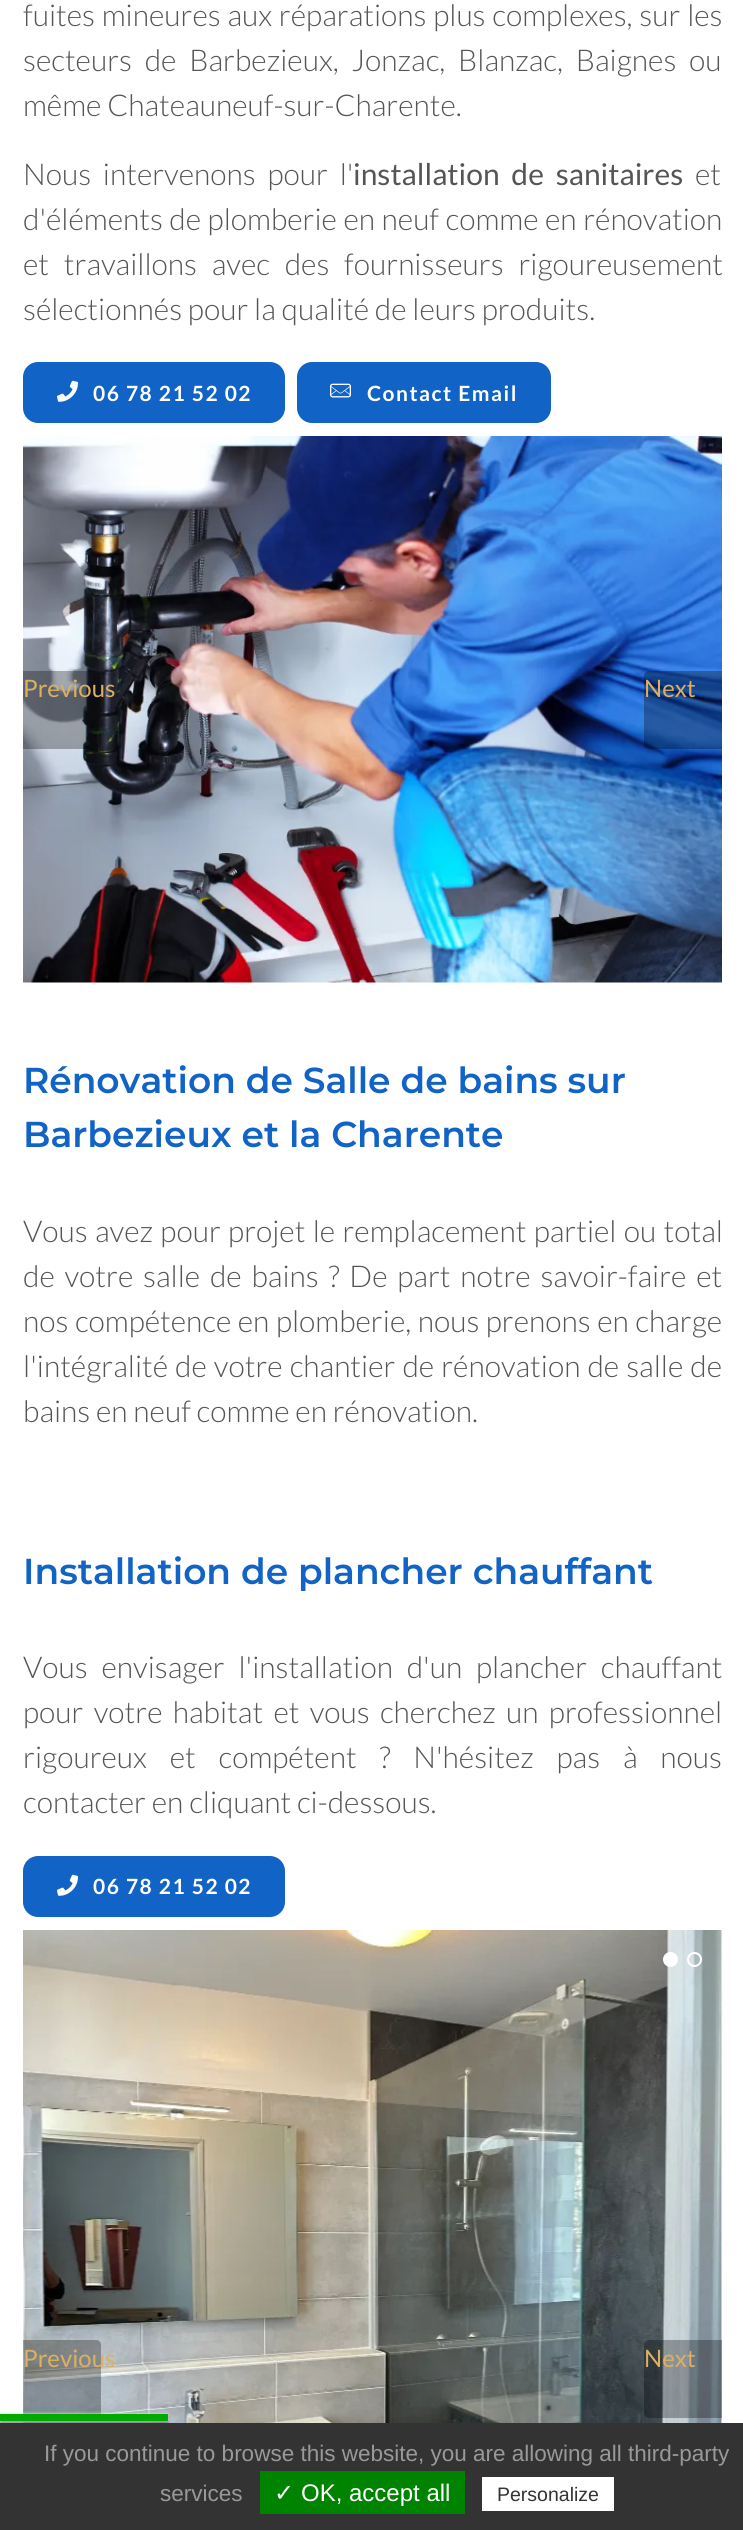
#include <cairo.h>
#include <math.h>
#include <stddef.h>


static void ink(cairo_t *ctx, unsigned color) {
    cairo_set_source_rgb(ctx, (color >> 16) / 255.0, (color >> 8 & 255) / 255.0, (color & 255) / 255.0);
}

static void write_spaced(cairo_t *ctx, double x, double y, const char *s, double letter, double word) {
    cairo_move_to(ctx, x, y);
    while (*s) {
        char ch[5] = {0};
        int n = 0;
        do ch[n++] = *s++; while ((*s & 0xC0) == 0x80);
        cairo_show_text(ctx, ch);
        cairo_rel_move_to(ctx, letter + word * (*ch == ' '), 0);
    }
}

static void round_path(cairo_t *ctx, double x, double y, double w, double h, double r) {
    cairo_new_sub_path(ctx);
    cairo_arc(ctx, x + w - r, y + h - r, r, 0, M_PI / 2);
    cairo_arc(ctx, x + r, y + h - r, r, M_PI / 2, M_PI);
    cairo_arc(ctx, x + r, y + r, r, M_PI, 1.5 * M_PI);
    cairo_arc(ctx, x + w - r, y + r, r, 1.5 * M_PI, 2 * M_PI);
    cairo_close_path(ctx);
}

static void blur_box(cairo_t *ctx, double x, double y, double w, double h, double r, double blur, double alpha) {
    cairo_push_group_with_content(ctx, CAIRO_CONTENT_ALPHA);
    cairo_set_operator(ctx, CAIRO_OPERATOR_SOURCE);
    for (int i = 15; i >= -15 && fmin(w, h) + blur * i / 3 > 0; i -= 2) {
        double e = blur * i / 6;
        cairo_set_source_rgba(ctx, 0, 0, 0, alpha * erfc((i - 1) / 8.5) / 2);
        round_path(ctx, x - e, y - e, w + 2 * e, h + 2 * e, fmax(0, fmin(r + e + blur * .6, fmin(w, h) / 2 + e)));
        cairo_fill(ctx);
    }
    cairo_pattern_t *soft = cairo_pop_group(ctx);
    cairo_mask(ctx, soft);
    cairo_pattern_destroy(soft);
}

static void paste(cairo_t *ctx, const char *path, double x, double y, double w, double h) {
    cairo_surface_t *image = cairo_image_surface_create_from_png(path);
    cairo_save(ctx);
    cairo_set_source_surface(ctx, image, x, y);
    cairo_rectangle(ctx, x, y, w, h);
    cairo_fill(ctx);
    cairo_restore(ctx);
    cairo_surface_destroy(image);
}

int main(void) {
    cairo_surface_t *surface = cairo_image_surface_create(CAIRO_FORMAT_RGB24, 743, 2530);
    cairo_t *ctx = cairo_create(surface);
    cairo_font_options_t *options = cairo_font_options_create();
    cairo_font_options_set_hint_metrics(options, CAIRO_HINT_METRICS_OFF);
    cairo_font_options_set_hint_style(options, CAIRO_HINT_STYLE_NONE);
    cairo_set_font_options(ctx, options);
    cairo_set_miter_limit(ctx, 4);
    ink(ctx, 0xFFFFFF);
    cairo_paint(ctx);
    cairo_select_font_face(ctx, "Lato Light", CAIRO_FONT_SLANT_NORMAL, CAIRO_FONT_WEIGHT_NORMAL);
    cairo_set_font_size(ctx, 30);
    ink(ctx, 0x555555);
    write_spaced(ctx, 23, 26, "fuites mineures aux réparations plus complexes, sur les", 0, 1);
    write_spaced(ctx, 23, 71, "secteurs de Barbezieux, Jonzac, Blanzac, Baignes ou", 0, 7);
    cairo_move_to(ctx, 23, 116);
    cairo_show_text(ctx, "même Chateauneuf-sur-Charente.");
    write_spaced(ctx, 23, 185, "Nous intervenons pour l'", 0, 6);
    cairo_select_font_face(ctx, "Lato", CAIRO_FONT_SLANT_NORMAL, CAIRO_FONT_WEIGHT_NORMAL);
    write_spaced(ctx, 353, 185, "installation de sanitaires", 0, 6);
    cairo_select_font_face(ctx, "Lato Light", CAIRO_FONT_SLANT_NORMAL, CAIRO_FONT_WEIGHT_NORMAL);
    cairo_move_to(ctx, 695, 185);
    cairo_show_text(ctx, "et");
    write_spaced(ctx, 23, 230, "d'éléments de plomberie en neuf comme en rénovation", 0, 0.75);
    write_spaced(ctx, 23, 275, "et travaillons avec des fournisseurs rigoureusement", 0, 9);
    cairo_move_to(ctx, 23, 320);
    cairo_show_text(ctx, "sélectionnés pour la qualité de leurs produits.");
    ink(ctx, 0x1163C6);
    round_path(ctx, 23, 362, 262, 61, 15);
    cairo_fill(ctx);
    paste(ctx, "media/1.png", 57, 380, 21, 22);
    cairo_select_font_face(ctx, "Lato", CAIRO_FONT_SLANT_NORMAL, CAIRO_FONT_WEIGHT_BOLD);
    cairo_set_font_size(ctx, 21);
    ink(ctx, 0xFFFFFF);
    write_spaced(ctx, 93, 401, "06 78 21 52 02", 1.5, 0);
    ink(ctx, 0x1163C6);
    round_path(ctx, 297, 362, 254, 61, 15);
    cairo_fill(ctx);
    paste(ctx, "media/2.png", 330, 383, 21, 15);
    ink(ctx, 0xFFFFFF);
    write_spaced(ctx, 367, 401, "Contact Email", 1.5, 0);
    paste(ctx, "media/3.png", 23, 436, 699, 547);
    cairo_set_source_rgba(ctx, 0, 0, 0, 0.3);
    cairo_new_path(ctx);
    cairo_move_to(ctx, 23, 671);
    cairo_line_to(ctx, 96, 671);
    cairo_curve_to(ctx, 99, 671, 101, 673, 101, 676);
    cairo_line_to(ctx, 101, 744);
    cairo_curve_to(ctx, 101, 747, 99, 749, 96, 749);
    cairo_line_to(ctx, 23, 749);
    cairo_close_path(ctx);
    cairo_fill(ctx);
    cairo_select_font_face(ctx, "Lato", CAIRO_FONT_SLANT_NORMAL, CAIRO_FONT_WEIGHT_NORMAL);
    cairo_set_font_size(ctx, 24);
    ink(ctx, 0xDBB161);
    cairo_move_to(ctx, 23, 697);
    cairo_show_text(ctx, "Previous");
    cairo_set_source_rgba(ctx, 0, 0, 0, 0.3);
    cairo_new_path(ctx);
    cairo_move_to(ctx, 649, 671);
    cairo_line_to(ctx, 722, 671);
    cairo_line_to(ctx, 722, 749);
    cairo_line_to(ctx, 649, 749);
    cairo_curve_to(ctx, 646, 749, 644, 747, 644, 744);
    cairo_line_to(ctx, 644, 676);
    cairo_curve_to(ctx, 644, 673, 646, 671, 649, 671);
    cairo_close_path(ctx);
    cairo_fill(ctx);
    ink(ctx, 0xDBB161);
    cairo_move_to(ctx, 644, 697);
    cairo_show_text(ctx, "Next");
    cairo_select_font_face(ctx, "Montserrat SemiBold", CAIRO_FONT_SLANT_NORMAL, CAIRO_FONT_WEIGHT_NORMAL);
    cairo_set_font_size(ctx, 36);
    ink(ctx, 0x1163C6);
    cairo_move_to(ctx, 23, 1093);
    cairo_show_text(ctx, "Rénovation de Salle de bains sur");
    cairo_move_to(ctx, 23, 1147);
    cairo_show_text(ctx, "Barbezieux et la Charente");
    cairo_select_font_face(ctx, "Lato Light", CAIRO_FONT_SLANT_NORMAL, CAIRO_FONT_WEIGHT_NORMAL);
    cairo_set_font_size(ctx, 30);
    ink(ctx, 0x555555);
    write_spaced(ctx, 23, 1242, "Vous avez pour projet le remplacement partiel ou total", 0, 1.5);
    write_spaced(ctx, 23, 1287, "de votre salle de bains ? De part notre savoir-faire et", 0, 4);
    write_spaced(ctx, 23, 1332, "nos compétence en plomberie, nous prenons en charge", 0, 0.75);
    write_spaced(ctx, 23, 1377, "l'intégralité de votre chantier de rénovation de salle de", 0, 1.25);
    cairo_move_to(ctx, 23, 1422);
    cairo_show_text(ctx, "bains en neuf comme en rénovation.");
    cairo_select_font_face(ctx, "Montserrat SemiBold", CAIRO_FONT_SLANT_NORMAL, CAIRO_FONT_WEIGHT_NORMAL);
    cairo_set_font_size(ctx, 36);
    ink(ctx, 0x1163C6);
    cairo_move_to(ctx, 23, 1584);
    cairo_show_text(ctx, "Installation de plancher chauffant");
    cairo_select_font_face(ctx, "Lato Light", CAIRO_FONT_SLANT_NORMAL, CAIRO_FONT_WEIGHT_NORMAL);
    cairo_set_font_size(ctx, 30);
    ink(ctx, 0x555555);
    write_spaced(ctx, 23, 1678, "Vous envisager l'installation d'un plancher chauffant", 0, 8);
    write_spaced(ctx, 23, 1723, "pour votre habitat et vous cherchez un professionnel", 0, 4.5);
    write_spaced(ctx, 23, 1768, "rigoureux et compétent ? N'hésitez pas à nous", 0, 17);
    cairo_move_to(ctx, 23, 1813);
    cairo_show_text(ctx, "contacter en cliquant ci-dessous.");
    ink(ctx, 0x1163C6);
    round_path(ctx, 23, 1856, 262, 61, 15);
    cairo_fill(ctx);
    paste(ctx, "media/1.png", 57, 1874, 21, 22);
    cairo_select_font_face(ctx, "Lato", CAIRO_FONT_SLANT_NORMAL, CAIRO_FONT_WEIGHT_BOLD);
    cairo_set_font_size(ctx, 21);
    ink(ctx, 0xFFFFFF);
    write_spaced(ctx, 93, 1894, "06 78 21 52 02", 1.5, 0);
    paste(ctx, "media/4.png", 23, 1930, 699, 493);
    cairo_arc(ctx, 670.5, 1959.5, 6.5, 0, 2 * M_PI);
    cairo_fill_preserve(ctx);
    cairo_stroke(ctx);
    cairo_arc(ctx, 694.5, 1959.5, 6.5, 0, 2 * M_PI);
    cairo_stroke(ctx);
    cairo_set_source_rgba(ctx, 0, 0, 0, 0.3);
    cairo_new_path(ctx);
    cairo_move_to(ctx, 23, 2340);
    cairo_line_to(ctx, 96, 2340);
    cairo_curve_to(ctx, 99, 2340, 101, 2342, 101, 2345);
    cairo_line_to(ctx, 101, 2413);
    cairo_curve_to(ctx, 101, 2416, 99, 2418, 96, 2418);
    cairo_line_to(ctx, 23, 2418);
    cairo_close_path(ctx);
    cairo_fill(ctx);
    cairo_select_font_face(ctx, "Lato", CAIRO_FONT_SLANT_NORMAL, CAIRO_FONT_WEIGHT_NORMAL);
    cairo_set_font_size(ctx, 24);
    ink(ctx, 0xDBB161);
    cairo_move_to(ctx, 23, 2367);
    cairo_show_text(ctx, "Previous");
    cairo_set_source_rgba(ctx, 0, 0, 0, 0.3);
    cairo_new_path(ctx);
    cairo_move_to(ctx, 649, 2340);
    cairo_line_to(ctx, 722, 2340);
    cairo_line_to(ctx, 722, 2418);
    cairo_line_to(ctx, 649, 2418);
    cairo_curve_to(ctx, 646, 2418, 644, 2416, 644, 2413);
    cairo_line_to(ctx, 644, 2345);
    cairo_curve_to(ctx, 644, 2342, 646, 2340, 649, 2340);
    cairo_close_path(ctx);
    cairo_fill(ctx);
    ink(ctx, 0xDBB161);
    cairo_move_to(ctx, 644, 2367);
    cairo_show_text(ctx, "Next");
    ink(ctx, 0x555555);
    blur_box(ctx, 0, 2415, 168, 8, 0, 1.5, 1);
    ink(ctx, 0xFFFFFF);
    blur_box(ctx, 0, 2414, 168, 7, 0, 1.5, 1);
    ink(ctx, 0x00AA00);
    cairo_rectangle(ctx, 0, 2414, 168, 7);
    cairo_fill(ctx);
    ink(ctx, 0x333333);
    cairo_rectangle(ctx, 0, 2423, 743, 107);
    cairo_fill(ctx);
    cairo_select_font_face(ctx, "Liberation Sans", CAIRO_FONT_SLANT_NORMAL, CAIRO_FONT_WEIGHT_NORMAL);
    cairo_set_font_size(ctx, 22.5);
    ink(ctx, 0x999999);
    cairo_move_to(ctx, 44, 2461);
    cairo_show_text(ctx, "If you continue to browse this website, you are allowing all third-party");
    cairo_move_to(ctx, 160, 2501);
    cairo_show_text(ctx, "services");
    ink(ctx, 0x008300);
    cairo_rectangle(ctx, 260, 2471, 205, 43);
    cairo_fill(ctx);
    cairo_select_font_face(ctx, "DejaVu Sans", CAIRO_FONT_SLANT_NORMAL, CAIRO_FONT_WEIGHT_NORMAL);
    cairo_set_font_size(ctx, 24);
    ink(ctx, 0xFFFFFF);
    cairo_move_to(ctx, 274, 2501);
    cairo_show_text(ctx, "✓");
    cairo_select_font_face(ctx, "Liberation Sans", CAIRO_FONT_SLANT_NORMAL, CAIRO_FONT_WEIGHT_NORMAL);
    cairo_move_to(ctx, 301, 2501);
    cairo_show_text(ctx, "OK, accept all");
    cairo_rectangle(ctx, 482, 2477, 132, 34);
    cairo_fill(ctx);
    cairo_set_font_size(ctx, 19.5);
    ink(ctx, 0x333333);
    cairo_move_to(ctx, 497, 2501);
    cairo_show_text(ctx, "Personalize");
    cairo_surface_write_to_png(surface, "image.png");
    cairo_font_options_destroy(options);
    cairo_destroy(ctx);
    cairo_surface_destroy(surface);
    return 0;
}
